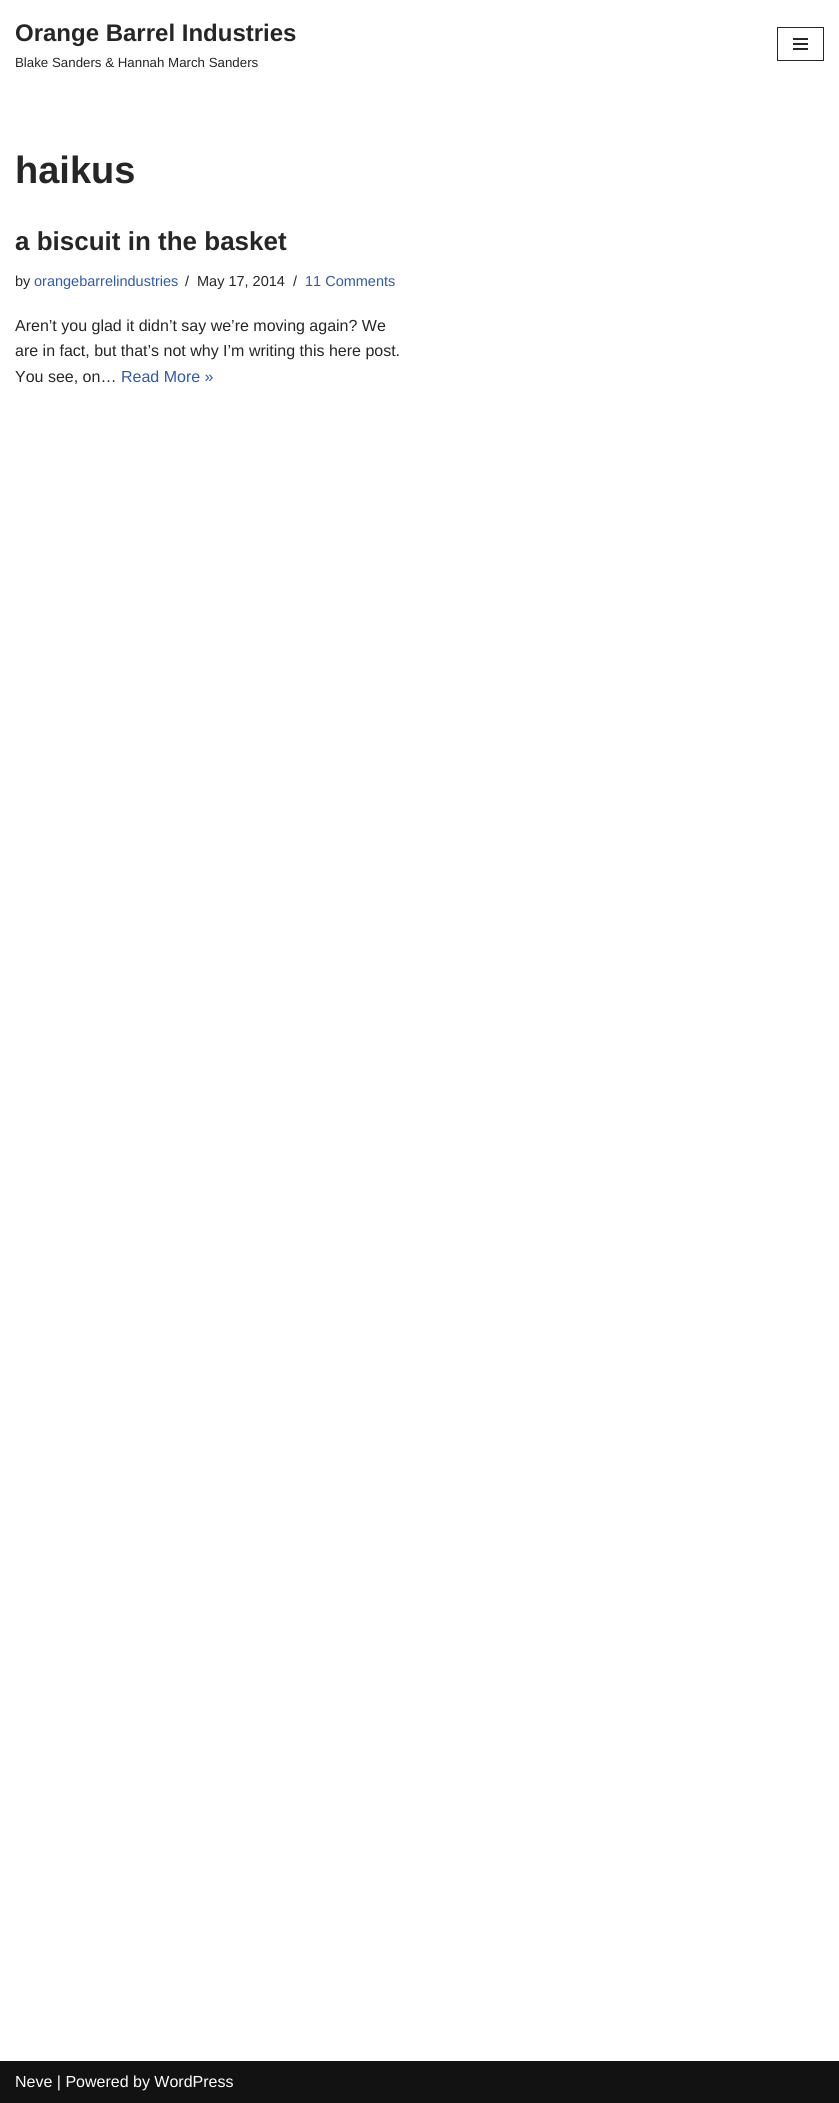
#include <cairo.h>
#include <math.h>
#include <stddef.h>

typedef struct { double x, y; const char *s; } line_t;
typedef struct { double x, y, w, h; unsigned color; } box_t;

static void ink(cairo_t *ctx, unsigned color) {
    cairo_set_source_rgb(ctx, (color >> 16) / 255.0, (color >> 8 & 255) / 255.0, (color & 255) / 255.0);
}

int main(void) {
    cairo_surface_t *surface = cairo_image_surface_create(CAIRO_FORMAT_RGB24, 839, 2103);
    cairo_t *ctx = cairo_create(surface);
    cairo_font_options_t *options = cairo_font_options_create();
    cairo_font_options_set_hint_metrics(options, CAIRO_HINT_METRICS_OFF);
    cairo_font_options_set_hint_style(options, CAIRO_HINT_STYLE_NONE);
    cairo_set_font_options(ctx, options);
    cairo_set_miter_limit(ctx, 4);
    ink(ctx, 0xFFFFFF);
    cairo_paint(ctx);
    cairo_select_font_face(ctx, "Liberation Sans", CAIRO_FONT_SLANT_NORMAL, CAIRO_FONT_WEIGHT_BOLD);
    cairo_set_font_size(ctx, 24);
    ink(ctx, 0x272626);
    cairo_move_to(ctx, 15, 41);
    cairo_show_text(ctx, "Orange Barrel Industries");
    cairo_select_font_face(ctx, "Liberation Sans", CAIRO_FONT_SLANT_NORMAL, CAIRO_FONT_WEIGHT_NORMAL);
    cairo_set_font_size(ctx, 13.3);
    cairo_move_to(ctx, 15, 67);
    cairo_show_text(ctx, "Blake Sanders & Hannah March Sanders");
    cairo_rectangle(ctx, 777.5, 27.5, 46, 33);
    cairo_set_line_width(ctx, 1);
    cairo_stroke(ctx);
    {
        static const box_t items[] = {
            {793, 38, 15, 2, 0x272626},
            {793, 43, 15, 2, 0x272626},
            {793, 48, 15, 2, 0x272626},
        };
        for (size_t i = 0; i < sizeof items / sizeof *items; i++) {
            ink(ctx, items[i].color);
            cairo_rectangle(ctx, items[i].x, items[i].y, items[i].w, items[i].h);
            cairo_fill(ctx);
        }
    }
    cairo_select_font_face(ctx, "Liberation Sans", CAIRO_FONT_SLANT_NORMAL, CAIRO_FONT_WEIGHT_BOLD);
    cairo_set_font_size(ctx, 38);
    cairo_move_to(ctx, 15, 183);
    cairo_show_text(ctx, "haikus");
    cairo_set_font_size(ctx, 26);
    cairo_move_to(ctx, 15, 250);
    cairo_show_text(ctx, "a biscuit in the basket");
    cairo_select_font_face(ctx, "Liberation Sans", CAIRO_FONT_SLANT_NORMAL, CAIRO_FONT_WEIGHT_NORMAL);
    cairo_set_font_size(ctx, 14.5);
    cairo_move_to(ctx, 15, 286);
    cairo_show_text(ctx, "by");
    ink(ctx, 0x2F5AAE);
    cairo_move_to(ctx, 34, 286);
    cairo_show_text(ctx, "orangebarrelindustries");
    ink(ctx, 0x272626);
    {
        static const line_t items[] = {
            {185, 286, "/"},
            {197, 286, "May 17, 2014"},
            {293, 286, "/"},
        };
        for (size_t i = 0; i < sizeof items / sizeof *items; i++) {
            cairo_move_to(ctx, items[i].x, items[i].y);
            cairo_show_text(ctx, items[i].s);
        }
    }
    ink(ctx, 0x2F5AAE);
    cairo_move_to(ctx, 305, 286);
    cairo_show_text(ctx, "11 Comments");
    cairo_set_font_size(ctx, 16);
    ink(ctx, 0x272626);
    {
        static const line_t items[] = {
            {15, 331, "Aren’t you glad it didn’t say we’re moving again? We"},
            {15, 356, "are in fact, but that’s not why I’m writing this here post."},
            {15, 382, "You see, on…"},
        };
        for (size_t i = 0; i < sizeof items / sizeof *items; i++) {
            cairo_move_to(ctx, items[i].x, items[i].y);
            cairo_show_text(ctx, items[i].s);
        }
    }
    ink(ctx, 0x2F5AAE);
    cairo_move_to(ctx, 121, 382);
    cairo_show_text(ctx, "Read More »");
    ink(ctx, 0x121212);
    cairo_rectangle(ctx, 0, 2061, 839, 42);
    cairo_fill(ctx);
    ink(ctx, 0xFFFFFF);
    cairo_move_to(ctx, 15, 2087);
    cairo_show_text(ctx, "Neve | Powered by WordPress");
    cairo_surface_write_to_png(surface, "image.png");
    cairo_font_options_destroy(options);
    cairo_destroy(ctx);
    cairo_surface_destroy(surface);
    return 0;
}
